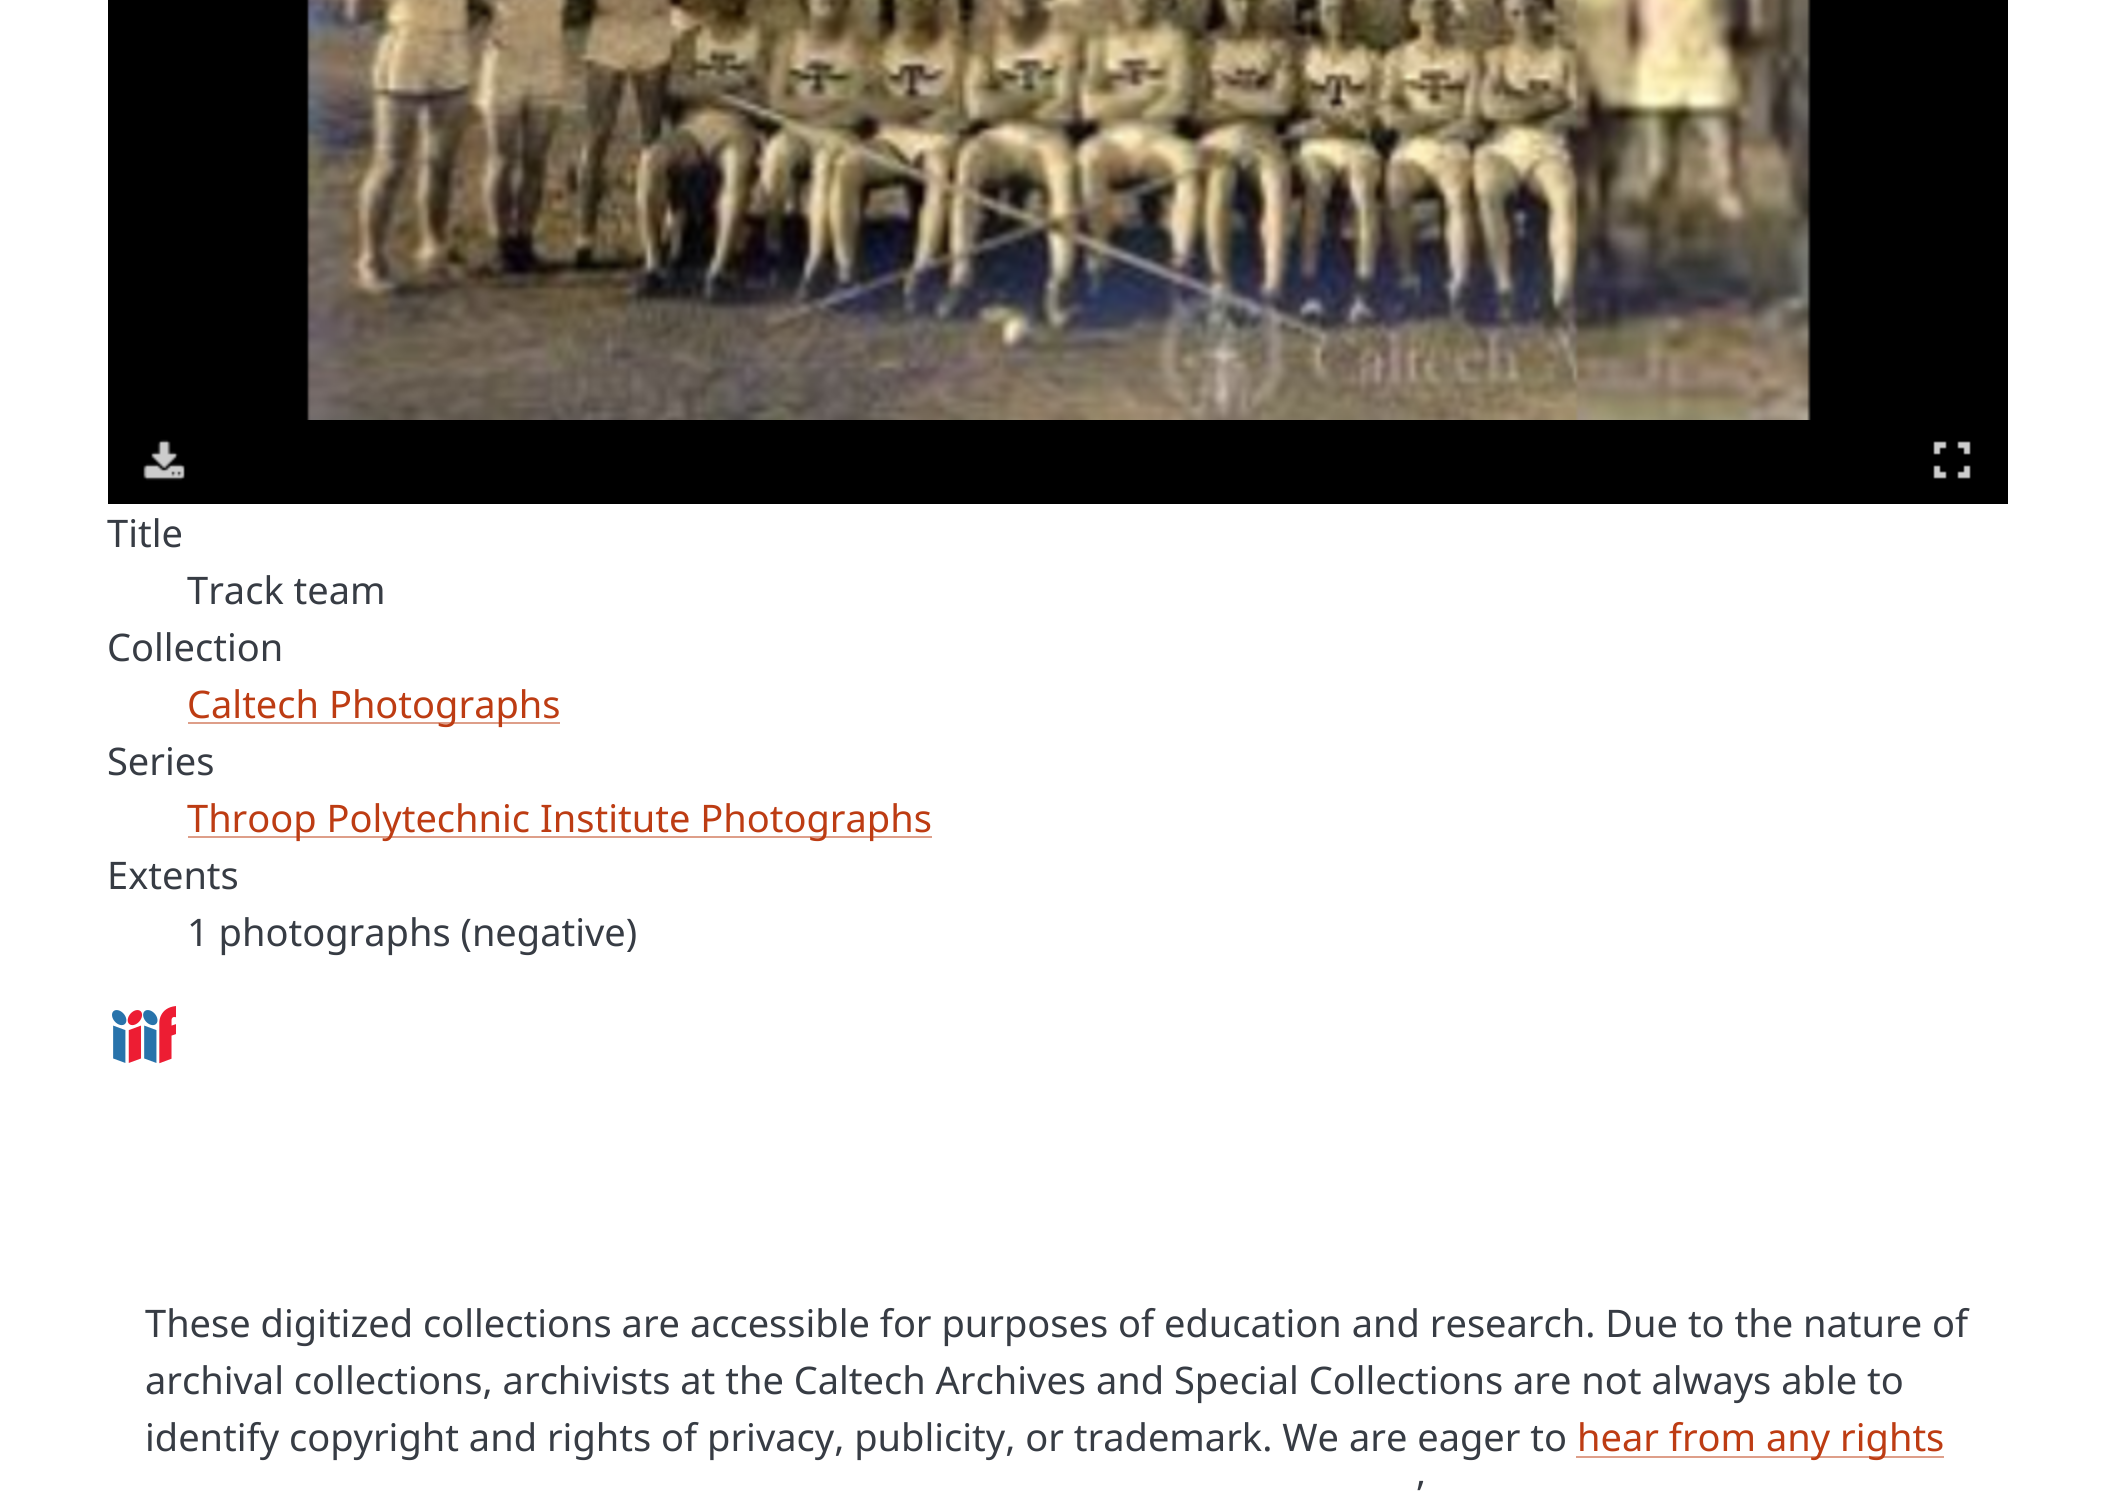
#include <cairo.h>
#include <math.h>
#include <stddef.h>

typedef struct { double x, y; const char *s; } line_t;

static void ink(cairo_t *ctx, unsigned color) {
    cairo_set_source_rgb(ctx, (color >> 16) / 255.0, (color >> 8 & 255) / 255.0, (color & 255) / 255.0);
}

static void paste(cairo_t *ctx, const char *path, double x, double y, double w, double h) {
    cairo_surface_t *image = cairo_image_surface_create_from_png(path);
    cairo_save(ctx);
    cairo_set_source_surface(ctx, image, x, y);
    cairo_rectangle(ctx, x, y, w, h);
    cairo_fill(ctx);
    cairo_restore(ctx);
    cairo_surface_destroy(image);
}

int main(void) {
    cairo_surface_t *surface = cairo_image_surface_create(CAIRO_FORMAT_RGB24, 2113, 1496);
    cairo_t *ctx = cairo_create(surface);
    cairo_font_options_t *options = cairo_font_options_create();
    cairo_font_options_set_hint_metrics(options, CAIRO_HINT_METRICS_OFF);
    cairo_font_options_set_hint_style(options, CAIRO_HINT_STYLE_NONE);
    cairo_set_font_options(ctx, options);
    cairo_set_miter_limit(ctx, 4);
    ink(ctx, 0xFFFFFF);
    cairo_paint(ctx);
    ink(ctx, 0x000000);
    cairo_rectangle(ctx, 108, 0, 1900, 504);
    cairo_fill(ctx);
    paste(ctx, "media/1.png", 306, 0, 1505, 420);
    paste(ctx, "media/2.png", 143, 439, 42, 42);
    paste(ctx, "media/3.png", 1933, 441, 38, 38);
    cairo_select_font_face(ctx, "Noto Sans", CAIRO_FONT_SLANT_NORMAL, CAIRO_FONT_WEIGHT_NORMAL);
    cairo_set_font_size(ctx, 38);
    ink(ctx, 0x373C44);
    {
        static const line_t items[] = {
            {107, 547, "Title"},
            {187, 604, "Track team"},
            {107, 661, "Collection"},
        };
        for (size_t i = 0; i < sizeof items / sizeof *items; i++) {
            cairo_move_to(ctx, items[i].x, items[i].y);
            cairo_show_text(ctx, items[i].s);
        }
    }
    ink(ctx, 0xDE9E89);
    cairo_rectangle(ctx, 188, 722, 372, 2);
    cairo_fill(ctx);
    ink(ctx, 0xBD3C13);
    cairo_move_to(ctx, 187, 718);
    cairo_show_text(ctx, "Caltech Photographs");
    ink(ctx, 0x373C44);
    cairo_move_to(ctx, 107, 775);
    cairo_show_text(ctx, "Series");
    ink(ctx, 0xDE9E89);
    cairo_rectangle(ctx, 188, 836, 744, 2);
    cairo_fill(ctx);
    ink(ctx, 0xBD3C13);
    cairo_move_to(ctx, 187, 832);
    cairo_show_text(ctx, "Throop Polytechnic Institute Photographs");
    ink(ctx, 0x373C44);
    cairo_move_to(ctx, 107, 889);
    cairo_show_text(ctx, "Extents");
    cairo_move_to(ctx, 187, 946);
    cairo_show_text(ctx, "1 photographs (negative)");
    paste(ctx, "media/4.png", 112, 1006, 64, 58);
    {
        static const line_t items[] = {
            {145, 1337, "These digitized collections are accessible for purposes of education and research. Due to the nature of"},
            {145, 1394, "archival collections, archivists at the Caltech Archives and Special Collections are not always able to"},
            {145, 1451, "identify copyright and rights of privacy, publicity, or trademark. We are eager to"},
        };
        for (size_t i = 0; i < sizeof items / sizeof *items; i++) {
            cairo_move_to(ctx, items[i].x, items[i].y);
            cairo_show_text(ctx, items[i].s);
        }
    }
    ink(ctx, 0xDE9E89);
    cairo_rectangle(ctx, 1576, 1456, 368, 2);
    cairo_fill(ctx);
    ink(ctx, 0xBD3C13);
    cairo_move_to(ctx, 1577, 1451);
    cairo_show_text(ctx, "hear from any rights");
    ink(ctx, 0x373C44);
    cairo_move_to(ctx, 1417, 1508);
    cairo_show_text(ctx, "’");
    cairo_surface_write_to_png(surface, "image.png");
    cairo_font_options_destroy(options);
    cairo_destroy(ctx);
    cairo_surface_destroy(surface);
    return 0;
}
